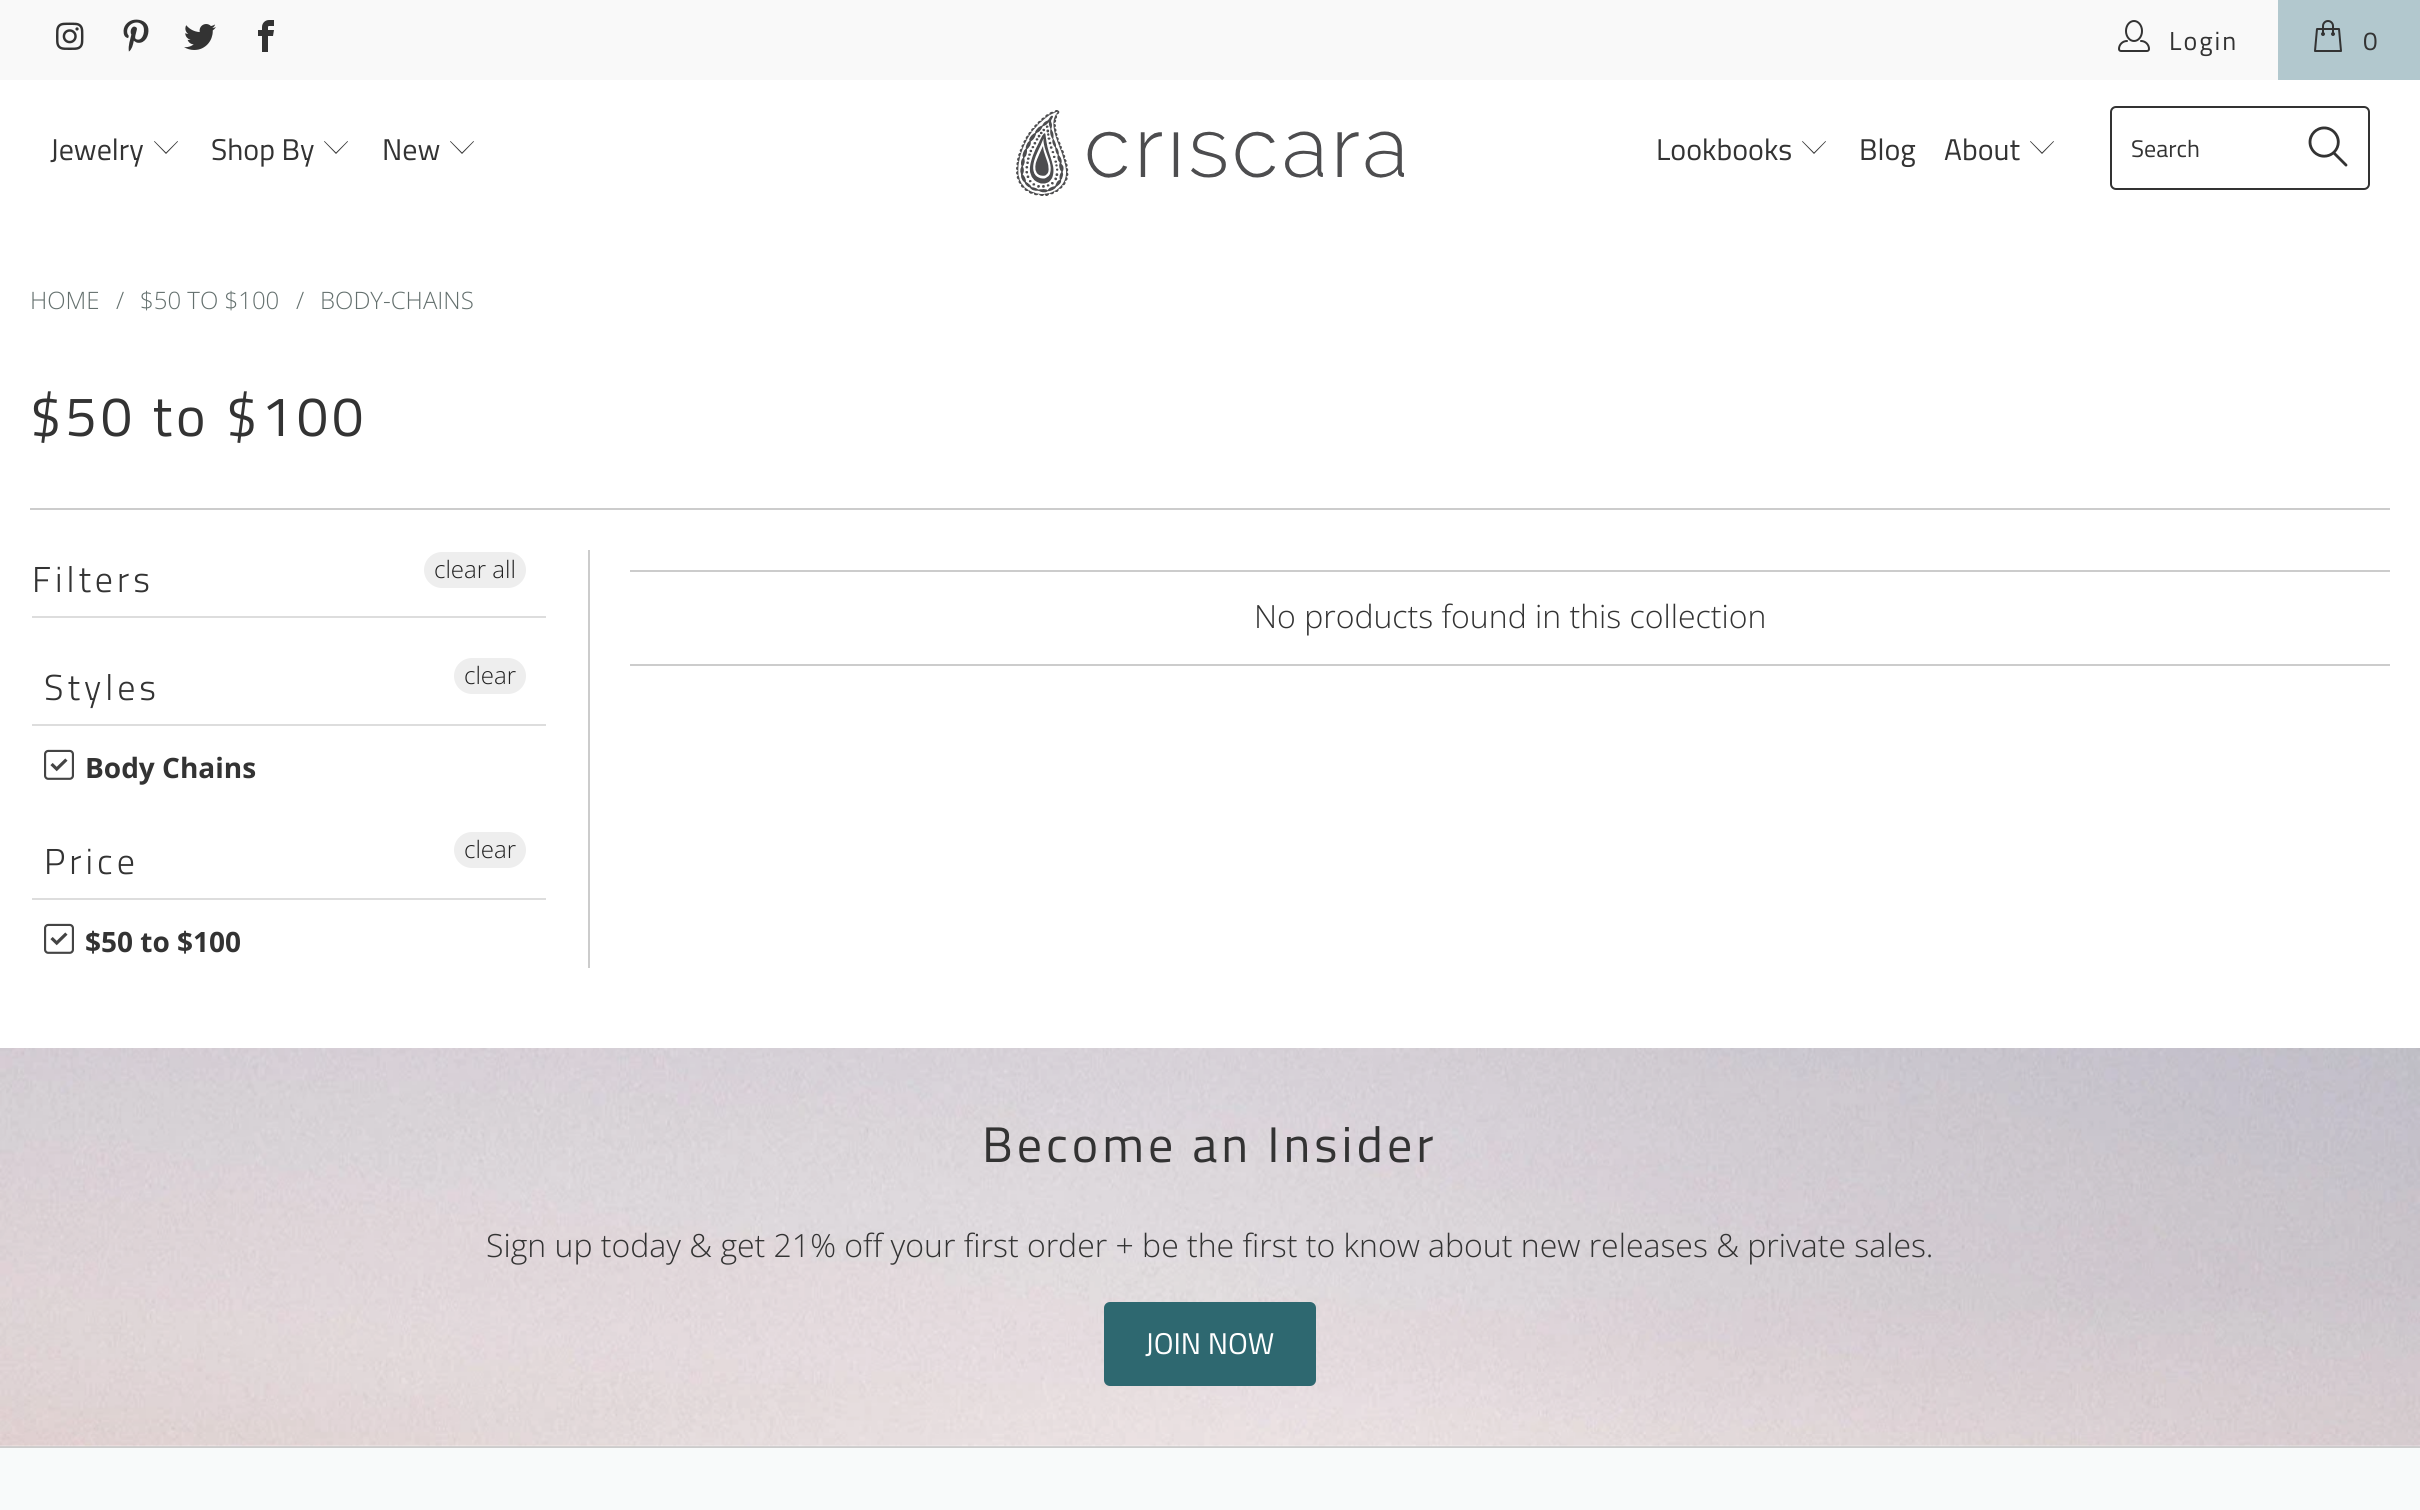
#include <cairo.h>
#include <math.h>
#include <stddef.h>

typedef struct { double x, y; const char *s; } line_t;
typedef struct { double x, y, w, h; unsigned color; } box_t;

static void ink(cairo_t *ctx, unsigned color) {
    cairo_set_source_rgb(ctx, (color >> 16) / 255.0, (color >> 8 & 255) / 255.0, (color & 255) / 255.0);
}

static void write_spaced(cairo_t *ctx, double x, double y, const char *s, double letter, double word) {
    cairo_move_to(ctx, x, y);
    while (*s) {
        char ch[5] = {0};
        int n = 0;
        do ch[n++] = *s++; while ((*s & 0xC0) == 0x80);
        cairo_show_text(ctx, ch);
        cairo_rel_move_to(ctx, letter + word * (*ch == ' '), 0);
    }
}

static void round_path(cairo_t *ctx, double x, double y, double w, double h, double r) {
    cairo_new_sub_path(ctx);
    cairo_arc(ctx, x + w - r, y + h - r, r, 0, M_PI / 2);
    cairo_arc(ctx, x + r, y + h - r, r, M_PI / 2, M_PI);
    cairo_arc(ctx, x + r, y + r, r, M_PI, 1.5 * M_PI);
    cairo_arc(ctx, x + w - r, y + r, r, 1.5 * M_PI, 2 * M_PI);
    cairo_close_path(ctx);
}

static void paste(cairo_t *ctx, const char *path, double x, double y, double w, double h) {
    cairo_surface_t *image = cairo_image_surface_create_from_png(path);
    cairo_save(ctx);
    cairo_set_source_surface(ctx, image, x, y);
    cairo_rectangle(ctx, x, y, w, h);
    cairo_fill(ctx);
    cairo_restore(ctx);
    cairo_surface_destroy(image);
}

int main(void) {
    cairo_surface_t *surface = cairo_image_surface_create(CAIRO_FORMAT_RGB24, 2420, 1510);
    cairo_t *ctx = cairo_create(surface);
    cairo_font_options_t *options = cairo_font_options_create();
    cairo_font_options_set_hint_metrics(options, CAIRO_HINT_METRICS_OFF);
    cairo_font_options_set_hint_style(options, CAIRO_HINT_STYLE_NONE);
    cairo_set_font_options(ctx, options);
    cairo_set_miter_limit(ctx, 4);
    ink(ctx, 0xFFFFFF);
    cairo_paint(ctx);
    ink(ctx, 0xF9F9F9);
    cairo_rectangle(ctx, 0, 0, 2278, 80);
    cairo_fill(ctx);
    paste(ctx, "media/1.png", 56, 22, 28, 28);
    paste(ctx, "media/2.png", 123, 19, 26, 33);
    paste(ctx, "media/3.png", 184, 24, 32, 26);
    paste(ctx, "media/4.png", 258, 20, 16, 32);
    paste(ctx, "media/5.png", 2118, 20, 32, 32);
    cairo_select_font_face(ctx, "Titillium Web", CAIRO_FONT_SLANT_NORMAL, CAIRO_FONT_WEIGHT_NORMAL);
    cairo_set_font_size(ctx, 26);
    ink(ctx, 0x333333);
    write_spaced(ctx, 2169, 50, "Login", 2, 0);
    ink(ctx, 0xB2C8CE);
    cairo_rectangle(ctx, 2278, 0, 142, 80);
    cairo_fill(ctx);
    paste(ctx, "media/6.png", 2314, 20, 28, 32);
    ink(ctx, 0x333333);
    write_spaced(ctx, 2363, 50, "0", 2, 0);
    cairo_set_font_size(ctx, 30);
    cairo_move_to(ctx, 50, 160);
    cairo_show_text(ctx, "Jewelry");
    cairo_new_path(ctx);
    cairo_move_to(ctx, 166, 154);
    cairo_line_to(ctx, 154, 141.5);
    cairo_line_to(ctx, 154.5, 141);
    cairo_line_to(ctx, 166, 152.5);
    cairo_line_to(ctx, 177.5, 141);
    cairo_line_to(ctx, 178, 141.5);
    cairo_close_path(ctx);
    cairo_fill(ctx);
    cairo_move_to(ctx, 211, 160);
    cairo_show_text(ctx, "Shop By");
    cairo_new_path(ctx);
    cairo_move_to(ctx, 336, 154);
    cairo_line_to(ctx, 324, 141.5);
    cairo_line_to(ctx, 324.5, 141);
    cairo_line_to(ctx, 336, 152.5);
    cairo_line_to(ctx, 347.5, 141);
    cairo_line_to(ctx, 348, 141.5);
    cairo_close_path(ctx);
    cairo_fill(ctx);
    cairo_move_to(ctx, 382, 160);
    cairo_show_text(ctx, "New");
    cairo_new_path(ctx);
    cairo_move_to(ctx, 462, 154);
    cairo_line_to(ctx, 450, 141.5);
    cairo_line_to(ctx, 450.5, 141);
    cairo_line_to(ctx, 462, 152.5);
    cairo_line_to(ctx, 473.5, 141);
    cairo_line_to(ctx, 474, 141.5);
    cairo_close_path(ctx);
    cairo_fill(ctx);
    paste(ctx, "media/7.png", 1016, 110, 388, 86);
    cairo_move_to(ctx, 1656, 160);
    cairo_show_text(ctx, "Lookbooks");
    cairo_new_path(ctx);
    cairo_move_to(ctx, 1814, 154);
    cairo_line_to(ctx, 1802, 141.5);
    cairo_line_to(ctx, 1802.5, 141);
    cairo_line_to(ctx, 1814, 152.5);
    cairo_line_to(ctx, 1825.5, 141);
    cairo_line_to(ctx, 1826, 141.5);
    cairo_close_path(ctx);
    cairo_fill(ctx);
    cairo_move_to(ctx, 1859, 160);
    cairo_show_text(ctx, "Blog");
    cairo_move_to(ctx, 1944, 160);
    cairo_show_text(ctx, "About");
    cairo_new_path(ctx);
    cairo_move_to(ctx, 2042, 154);
    cairo_line_to(ctx, 2030, 141.5);
    cairo_line_to(ctx, 2030.5, 141);
    cairo_line_to(ctx, 2042, 152.5);
    cairo_line_to(ctx, 2053.5, 141);
    cairo_line_to(ctx, 2054, 141.5);
    cairo_close_path(ctx);
    cairo_fill(ctx);
    round_path(ctx, 2111, 107, 258, 82, 5);
    cairo_stroke(ctx);
    cairo_set_font_size(ctx, 24);
    cairo_move_to(ctx, 2131, 157);
    cairo_show_text(ctx, "Search");
    paste(ctx, "media/8.png", 2308, 126, 40, 41);
    cairo_select_font_face(ctx, "Open Sans Light", CAIRO_FONT_SLANT_NORMAL, CAIRO_FONT_WEIGHT_NORMAL);
    ink(ctx, 0x64706E);
    {
        static const line_t items[] = {
            {30, 309, "HOME"},
            {116, 309, "/"},
            {140, 309, "$50 TO $100"},
            {296, 309, "/"},
            {320, 309, "BODY-CHAINS"},
        };
        for (size_t i = 0; i < sizeof items / sizeof *items; i++) {
            cairo_move_to(ctx, items[i].x, items[i].y);
            cairo_show_text(ctx, items[i].s);
        }
    }
    cairo_select_font_face(ctx, "Titillium Web", CAIRO_FONT_SLANT_NORMAL, CAIRO_FONT_WEIGHT_NORMAL);
    cairo_set_font_size(ctx, 56);
    ink(ctx, 0x333333);
    write_spaced(ctx, 30, 436, "$50 to $100", 4, 0);
    {
        static const box_t items[] = {
            {30, 508, 2360, 2, 0xCCCCCC},
            {588, 550, 2, 418, 0xCCCCCC},
            {32, 616, 514, 2, 0xDDDDDD},
        };
        for (size_t i = 0; i < sizeof items / sizeof *items; i++) {
            ink(ctx, items[i].color);
            cairo_rectangle(ctx, items[i].x, items[i].y, items[i].w, items[i].h);
            cairo_fill(ctx);
        }
    }
    cairo_select_font_face(ctx, "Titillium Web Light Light", CAIRO_FONT_SLANT_NORMAL, CAIRO_FONT_WEIGHT_NORMAL);
    cairo_set_font_size(ctx, 36);
    ink(ctx, 0x333333);
    write_spaced(ctx, 32, 592, "Filters", 4, 0);
    ink(ctx, 0xEEEEEE);
    round_path(ctx, 424, 552, 102, 36, 18);
    cairo_fill(ctx);
    cairo_select_font_face(ctx, "Open Sans Light", CAIRO_FONT_SLANT_NORMAL, CAIRO_FONT_WEIGHT_NORMAL);
    cairo_set_font_size(ctx, 24);
    ink(ctx, 0x222222);
    cairo_move_to(ctx, 434, 578);
    cairo_show_text(ctx, "clear all");
    ink(ctx, 0xDDDDDD);
    cairo_rectangle(ctx, 32, 724, 514, 2);
    cairo_fill(ctx);
    cairo_select_font_face(ctx, "Titillium Web Light Light", CAIRO_FONT_SLANT_NORMAL, CAIRO_FONT_WEIGHT_NORMAL);
    cairo_set_font_size(ctx, 36);
    ink(ctx, 0x333333);
    write_spaced(ctx, 44, 700, "Styles", 4, 0);
    ink(ctx, 0xEEEEEE);
    round_path(ctx, 454, 658, 72, 36, 18);
    cairo_fill(ctx);
    cairo_select_font_face(ctx, "Open Sans Light", CAIRO_FONT_SLANT_NORMAL, CAIRO_FONT_WEIGHT_NORMAL);
    cairo_set_font_size(ctx, 24);
    ink(ctx, 0x222222);
    cairo_move_to(ctx, 464, 684);
    cairo_show_text(ctx, "clear");
    paste(ctx, "media/9.png", 44, 749, 30, 31);
    cairo_select_font_face(ctx, "Open Sans", CAIRO_FONT_SLANT_NORMAL, CAIRO_FONT_WEIGHT_BOLD);
    cairo_set_font_size(ctx, 28);
    ink(ctx, 0x333333);
    cairo_move_to(ctx, 85, 778);
    cairo_show_text(ctx, "Body Chains");
    ink(ctx, 0xDDDDDD);
    cairo_rectangle(ctx, 32, 898, 514, 2);
    cairo_fill(ctx);
    cairo_select_font_face(ctx, "Titillium Web Light Light", CAIRO_FONT_SLANT_NORMAL, CAIRO_FONT_WEIGHT_NORMAL);
    cairo_set_font_size(ctx, 36);
    ink(ctx, 0x333333);
    write_spaced(ctx, 44, 874, "Price", 4, 0);
    ink(ctx, 0xEEEEEE);
    round_path(ctx, 454, 832, 72, 36, 18);
    cairo_fill(ctx);
    cairo_select_font_face(ctx, "Open Sans Light", CAIRO_FONT_SLANT_NORMAL, CAIRO_FONT_WEIGHT_NORMAL);
    cairo_set_font_size(ctx, 24);
    ink(ctx, 0x222222);
    cairo_move_to(ctx, 464, 858);
    cairo_show_text(ctx, "clear");
    paste(ctx, "media/9.png", 44, 923, 30, 31);
    cairo_select_font_face(ctx, "Open Sans", CAIRO_FONT_SLANT_NORMAL, CAIRO_FONT_WEIGHT_BOLD);
    cairo_set_font_size(ctx, 28);
    ink(ctx, 0x333333);
    cairo_move_to(ctx, 85, 952);
    cairo_show_text(ctx, "$50 to $100");
    ink(ctx, 0xCCCCCC);
    cairo_rectangle(ctx, 630, 570, 1760, 2);
    cairo_fill(ctx);
    cairo_rectangle(ctx, 630, 664, 1760, 2);
    cairo_fill(ctx);
    cairo_select_font_face(ctx, "Open Sans Light", CAIRO_FONT_SLANT_NORMAL, CAIRO_FONT_WEIGHT_NORMAL);
    cairo_set_font_size(ctx, 32);
    ink(ctx, 0x333333);
    cairo_move_to(ctx, 1254, 628);
    cairo_show_text(ctx, "No products found in this collection");
    ink(ctx, 0xCCCCCC);
    cairo_rectangle(ctx, 0, 1446, 2420, 2);
    cairo_fill(ctx);
    paste(ctx, "media/10.png", 0, 1048, 2420, 399);
    cairo_select_font_face(ctx, "Titillium Web", CAIRO_FONT_SLANT_NORMAL, CAIRO_FONT_WEIGHT_NORMAL);
    cairo_set_font_size(ctx, 50);
    ink(ctx, 0x333333);
    write_spaced(ctx, 982, 1162, "Become an Insider", 4, 0);
    cairo_select_font_face(ctx, "Open Sans Light", CAIRO_FONT_SLANT_NORMAL, CAIRO_FONT_WEIGHT_NORMAL);
    cairo_set_font_size(ctx, 32);
    cairo_move_to(ctx, 486, 1257);
    cairo_show_text(ctx, "Sign up today & get 21% off your first order + be the first to know about new releases & private sales.");
    ink(ctx, 0x2E6870);
    round_path(ctx, 1105, 1303, 210, 82, 5);
    cairo_fill_preserve(ctx);
    cairo_stroke(ctx);
    cairo_select_font_face(ctx, "Titillium Web", CAIRO_FONT_SLANT_NORMAL, CAIRO_FONT_WEIGHT_NORMAL);
    cairo_set_font_size(ctx, 30);
    ink(ctx, 0xFFFFFF);
    cairo_move_to(ctx, 1145, 1354);
    cairo_show_text(ctx, "JOIN NOW");
    ink(ctx, 0xF8FAFA);
    cairo_rectangle(ctx, 0, 1448, 2420, 62);
    cairo_fill(ctx);
    cairo_surface_write_to_png(surface, "image.png");
    cairo_font_options_destroy(options);
    cairo_destroy(ctx);
    cairo_surface_destroy(surface);
    return 0;
}
